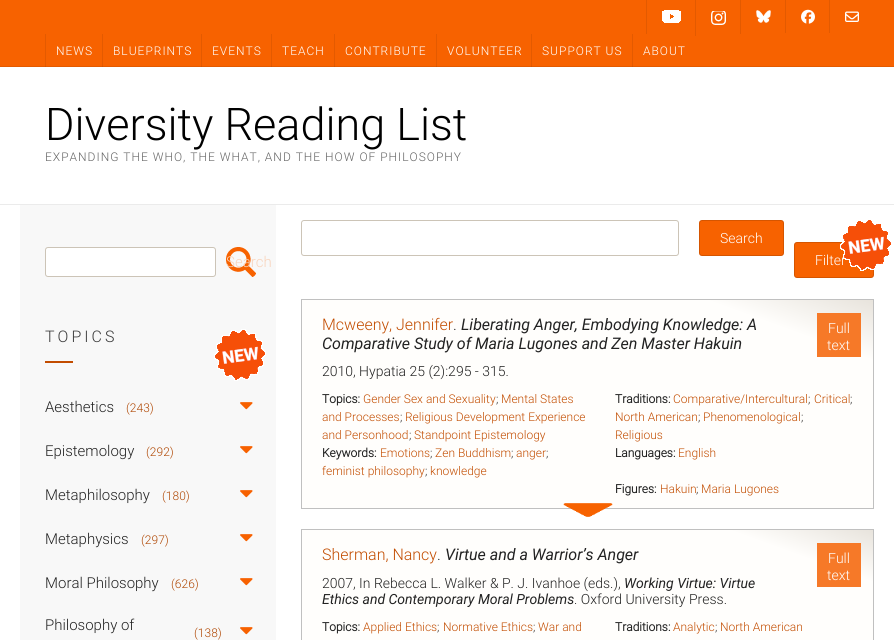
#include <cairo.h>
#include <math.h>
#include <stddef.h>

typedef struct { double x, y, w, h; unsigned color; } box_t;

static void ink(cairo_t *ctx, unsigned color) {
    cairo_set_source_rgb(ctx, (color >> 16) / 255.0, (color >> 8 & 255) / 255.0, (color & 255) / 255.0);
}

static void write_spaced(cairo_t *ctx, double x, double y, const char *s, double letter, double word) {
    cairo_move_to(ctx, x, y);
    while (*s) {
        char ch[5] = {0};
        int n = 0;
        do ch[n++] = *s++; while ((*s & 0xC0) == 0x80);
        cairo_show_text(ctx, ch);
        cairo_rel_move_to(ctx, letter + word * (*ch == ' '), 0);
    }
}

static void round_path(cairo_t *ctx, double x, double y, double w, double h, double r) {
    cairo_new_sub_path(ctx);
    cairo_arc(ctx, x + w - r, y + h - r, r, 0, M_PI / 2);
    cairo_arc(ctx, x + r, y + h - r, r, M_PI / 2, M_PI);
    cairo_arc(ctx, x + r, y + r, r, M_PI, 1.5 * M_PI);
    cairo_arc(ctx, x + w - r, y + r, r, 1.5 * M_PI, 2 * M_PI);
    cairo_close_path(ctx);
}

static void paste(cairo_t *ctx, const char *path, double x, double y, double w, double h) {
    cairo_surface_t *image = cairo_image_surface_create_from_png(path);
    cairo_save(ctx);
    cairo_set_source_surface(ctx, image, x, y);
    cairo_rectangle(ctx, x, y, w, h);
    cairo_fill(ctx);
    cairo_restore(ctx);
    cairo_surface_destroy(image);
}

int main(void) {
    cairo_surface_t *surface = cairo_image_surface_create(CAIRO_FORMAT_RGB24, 894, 640);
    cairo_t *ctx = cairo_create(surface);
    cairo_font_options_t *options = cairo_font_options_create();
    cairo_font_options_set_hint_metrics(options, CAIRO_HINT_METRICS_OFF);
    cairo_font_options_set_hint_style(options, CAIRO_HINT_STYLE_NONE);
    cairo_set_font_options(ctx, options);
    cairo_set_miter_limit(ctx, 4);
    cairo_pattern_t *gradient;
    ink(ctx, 0xFFFFFF);
    cairo_paint(ctx);
    {
        static const box_t items[] = {
            {0, 0, 894, 66, 0xF76200},
            {0, 66, 894, 1, 0xE35A00},
            {646, 0, 1, 34, 0xE35A00},
        };
        for (size_t i = 0; i < sizeof items / sizeof *items; i++) {
            ink(ctx, items[i].color);
            cairo_rectangle(ctx, items[i].x, items[i].y, items[i].w, items[i].h);
            cairo_fill(ctx);
        }
    }
    paste(ctx, "media/1.png", 662, 10, 19, 13);
    cairo_rectangle(ctx, 695, 0, 1, 36);
    cairo_fill(ctx);
    paste(ctx, "media/2.png", 711, 11, 15, 14);
    cairo_rectangle(ctx, 740, 0, 1, 34);
    cairo_fill(ctx);
    paste(ctx, "media/3.png", 756, 10, 15, 13);
    cairo_rectangle(ctx, 785, 0, 1, 33);
    cairo_fill(ctx);
    paste(ctx, "media/4.png", 801, 9, 14, 15);
    cairo_rectangle(ctx, 829, 0, 1, 33);
    cairo_fill(ctx);
    paste(ctx, "media/5.png", 845, 11, 14, 11);
    cairo_set_source_rgba(ctx, 0, 0, 0, 0.08);
    cairo_rectangle(ctx, 45, 34, 1, 33);
    cairo_fill(ctx);
    cairo_select_font_face(ctx, "Roboto Light", CAIRO_FONT_SLANT_NORMAL, CAIRO_FONT_WEIGHT_NORMAL);
    cairo_set_font_size(ctx, 12);
    ink(ctx, 0xFFFFFF);
    write_spaced(ctx, 56, 55, "NEWS", 1, 0);
    cairo_set_source_rgba(ctx, 0, 0, 0, 0.08);
    cairo_rectangle(ctx, 102, 34, 1, 33);
    cairo_fill(ctx);
    ink(ctx, 0xFFFFFF);
    write_spaced(ctx, 113, 55, "BLUEPRINTS", 1, 0);
    cairo_set_source_rgba(ctx, 0, 0, 0, 0.08);
    cairo_rectangle(ctx, 201, 34, 1, 33);
    cairo_fill(ctx);
    ink(ctx, 0xFFFFFF);
    write_spaced(ctx, 212, 55, "EVENTS", 1, 0);
    cairo_set_source_rgba(ctx, 0, 0, 0, 0.08);
    cairo_rectangle(ctx, 271, 34, 1, 33);
    cairo_fill(ctx);
    ink(ctx, 0xFFFFFF);
    write_spaced(ctx, 282, 55, "TEACH", 1, 0);
    cairo_set_source_rgba(ctx, 0, 0, 0, 0.08);
    cairo_rectangle(ctx, 334, 34, 1, 33);
    cairo_fill(ctx);
    ink(ctx, 0xFFFFFF);
    write_spaced(ctx, 345, 55, "CONTRIBUTE", 1, 0);
    cairo_set_source_rgba(ctx, 0, 0, 0, 0.08);
    cairo_rectangle(ctx, 436, 34, 1, 33);
    cairo_fill(ctx);
    ink(ctx, 0xFFFFFF);
    write_spaced(ctx, 447, 55, "VOLUNTEER", 1, 0);
    cairo_set_source_rgba(ctx, 0, 0, 0, 0.08);
    cairo_rectangle(ctx, 531, 34, 1, 33);
    cairo_fill(ctx);
    ink(ctx, 0xFFFFFF);
    write_spaced(ctx, 542, 55, "SUPPORT US", 1, 0);
    cairo_set_source_rgba(ctx, 0, 0, 0, 0.08);
    cairo_rectangle(ctx, 632, 34, 1, 33);
    cairo_fill(ctx);
    ink(ctx, 0xFFFFFF);
    write_spaced(ctx, 643, 55, "ABOUT", 1, 0);
    ink(ctx, 0xEBEBEB);
    cairo_rectangle(ctx, 0, 204, 894, 1);
    cairo_fill(ctx);
    cairo_select_font_face(ctx, "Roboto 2 Light", CAIRO_FONT_SLANT_NORMAL, CAIRO_FONT_WEIGHT_NORMAL);
    cairo_set_font_size(ctx, 45);
    ink(ctx, 0x000000);
    cairo_move_to(ctx, 45, 140);
    cairo_show_text(ctx, "Diversity Reading List");
    cairo_set_font_size(ctx, 12);
    ink(ctx, 0x656565);
    write_spaced(ctx, 45, 161, "EXPANDING THE WHO, THE WHAT, AND THE HOW OF PHILOSOPHY", 1, 0);
    ink(ctx, 0xF8F8F8);
    cairo_rectangle(ctx, 20, 205, 256, 435);
    cairo_fill(ctx);
    ink(ctx, 0xFFFFFF);
    round_path(ctx, 45.5, 247.5, 170, 29, 2.5);
    cairo_fill_preserve(ctx);
    ink(ctx, 0xCCC4B7);
    cairo_set_line_width(ctx, 1);
    cairo_stroke(ctx);
    paste(ctx, "media/6.png", 226, 247, 30, 30);
    cairo_select_font_face(ctx, "Roboto Light", CAIRO_FONT_SLANT_NORMAL, CAIRO_FONT_WEIGHT_NORMAL);
    cairo_set_font_size(ctx, 15);
    ink(ctx, 0xF8D3BB);
    cairo_move_to(ctx, 226, 267);
    cairo_show_text(ctx, "Search");
    paste(ctx, "media/7.png", 214, 329, 52, 52);
    cairo_set_font_size(ctx, 16);
    ink(ctx, 0x3A3A3A);
    write_spaced(ctx, 45, 342, "TOPICS", 3, 0);
    ink(ctx, 0xC24C00);
    cairo_rectangle(ctx, 45, 361, 28, 2);
    cairo_fill(ctx);
    cairo_set_font_size(ctx, 15);
    ink(ctx, 0x222222);
    cairo_move_to(ctx, 45, 412);
    cairo_show_text(ctx, "Aesthetics");
    cairo_set_font_size(ctx, 12);
    ink(ctx, 0xAF4602);
    cairo_move_to(ctx, 126, 412);
    cairo_show_text(ctx, "(243)");
    paste(ctx, "media/8.png", 240, 402, 13, 8);
    cairo_set_font_size(ctx, 15);
    ink(ctx, 0x222222);
    cairo_move_to(ctx, 45, 456);
    cairo_show_text(ctx, "Epistemology");
    cairo_set_font_size(ctx, 12);
    ink(ctx, 0xAF4602);
    cairo_move_to(ctx, 146, 456);
    cairo_show_text(ctx, "(292)");
    paste(ctx, "media/8.png", 240, 446, 13, 8);
    cairo_set_font_size(ctx, 15);
    ink(ctx, 0x222222);
    cairo_move_to(ctx, 45, 500);
    cairo_show_text(ctx, "Metaphilosophy");
    cairo_set_font_size(ctx, 12);
    ink(ctx, 0xAF4602);
    cairo_move_to(ctx, 162, 500);
    cairo_show_text(ctx, "(180)");
    paste(ctx, "media/8.png", 240, 490, 13, 8);
    cairo_set_font_size(ctx, 15);
    ink(ctx, 0x222222);
    cairo_move_to(ctx, 45, 544);
    cairo_show_text(ctx, "Metaphysics");
    cairo_set_font_size(ctx, 12);
    ink(ctx, 0xAF4602);
    cairo_move_to(ctx, 141, 544);
    cairo_show_text(ctx, "(297)");
    paste(ctx, "media/8.png", 240, 534, 13, 8);
    cairo_set_font_size(ctx, 15);
    ink(ctx, 0x222222);
    cairo_move_to(ctx, 45, 588);
    cairo_show_text(ctx, "Moral Philosophy");
    cairo_set_font_size(ctx, 12);
    ink(ctx, 0xAF4602);
    cairo_move_to(ctx, 171, 588);
    cairo_show_text(ctx, "(626)");
    paste(ctx, "media/8.png", 240, 578, 13, 8);
    cairo_set_font_size(ctx, 15);
    ink(ctx, 0x222222);
    cairo_move_to(ctx, 45, 630);
    cairo_show_text(ctx, "Philosophy of");
    cairo_set_font_size(ctx, 12);
    ink(ctx, 0xAF4602);
    cairo_move_to(ctx, 194, 637);
    cairo_show_text(ctx, "(138)");
    paste(ctx, "media/8.png", 240, 627, 13, 8);
    round_path(ctx, 301.5, 220.5, 377, 35, 2.5);
    ink(ctx, 0xCCC4B7);
    cairo_stroke(ctx);
    ink(ctx, 0xF76200);
    round_path(ctx, 699, 220, 85, 36, 3);
    cairo_fill(ctx);
    round_path(ctx, 699.5, 220.5, 84, 35, 2.5);
    cairo_set_source_rgba(ctx, 0, 0, 0, 0.14);
    cairo_stroke(ctx);
    cairo_set_font_size(ctx, 14);
    ink(ctx, 0xFFFFFF);
    cairo_move_to(ctx, 720, 243);
    cairo_show_text(ctx, "Search");
    ink(ctx, 0xF76200);
    round_path(ctx, 794, 242, 80, 36, 3);
    cairo_fill(ctx);
    round_path(ctx, 794.5, 242.5, 79, 35, 2.5);
    cairo_set_source_rgba(ctx, 0, 0, 0, 0.14);
    cairo_stroke(ctx);
    ink(ctx, 0xFFFFFF);
    cairo_move_to(ctx, 815, 265);
    cairo_show_text(ctx, "Filter");
    paste(ctx, "media/9.png", 840, 220, 51, 51);
    gradient = cairo_pattern_create_linear(677, 158, 521, 588);
    cairo_pattern_add_color_stop_rgba(gradient, 0, 0.8, 0.769, 0.718, 1);
    cairo_pattern_add_color_stop_rgba(gradient, 0.27, 1, 0.996, 0.988, 1);
    cairo_set_source(ctx, gradient);
    cairo_pattern_destroy(gradient);
    cairo_rectangle(ctx, 302, 300, 571, 208);
    cairo_fill(ctx);
    cairo_rectangle(ctx, 301.5, 299.5, 572, 209);
    ink(ctx, 0xC0C0C0);
    cairo_stroke(ctx);
    cairo_set_font_size(ctx, 16);
    ink(ctx, 0xC24C00);
    cairo_move_to(ctx, 322, 330);
    cairo_show_text(ctx, "Mcweeny, Jennifer");
    ink(ctx, 0x222222);
    cairo_move_to(ctx, 453, 330);
    cairo_show_text(ctx, ".");
    cairo_select_font_face(ctx, "Roboto", CAIRO_FONT_SLANT_ITALIC, CAIRO_FONT_WEIGHT_NORMAL);
    cairo_move_to(ctx, 461, 330);
    cairo_show_text(ctx, "Liberating Anger, Embodying Knowledge: A");
    cairo_move_to(ctx, 322, 349);
    cairo_show_text(ctx, "Comparative Study of Maria Lugones and Zen Master Hakuin");
    ink(ctx, 0xF67928);
    cairo_rectangle(ctx, 817, 313, 44, 44);
    cairo_fill(ctx);
    cairo_select_font_face(ctx, "Roboto Light", CAIRO_FONT_SLANT_NORMAL, CAIRO_FONT_WEIGHT_NORMAL);
    cairo_set_font_size(ctx, 14);
    ink(ctx, 0xFFFFFF);
    cairo_move_to(ctx, 828, 333);
    cairo_show_text(ctx, "Full");
    cairo_move_to(ctx, 827, 350);
    cairo_show_text(ctx, "text");
    ink(ctx, 0x222222);
    cairo_move_to(ctx, 322, 376);
    cairo_show_text(ctx, "2010, Hypatia 25 (2):295 - 315.");
    cairo_select_font_face(ctx, "Roboto", CAIRO_FONT_SLANT_NORMAL, CAIRO_FONT_WEIGHT_BOLD);
    cairo_set_font_size(ctx, 12);
    cairo_move_to(ctx, 322, 403);
    cairo_show_text(ctx, "Topics:");
    cairo_select_font_face(ctx, "Roboto Light", CAIRO_FONT_SLANT_NORMAL, CAIRO_FONT_WEIGHT_NORMAL);
    ink(ctx, 0xC24C00);
    cairo_move_to(ctx, 363, 403);
    cairo_show_text(ctx, "Gender Sex and Sexuality");
    ink(ctx, 0x222222);
    cairo_move_to(ctx, 496, 403);
    cairo_show_text(ctx, ";");
    ink(ctx, 0xC24C00);
    cairo_move_to(ctx, 501, 403);
    cairo_show_text(ctx, "Mental States");
    cairo_move_to(ctx, 322, 421);
    cairo_show_text(ctx, "and Processes");
    ink(ctx, 0x222222);
    cairo_move_to(ctx, 400, 421);
    cairo_show_text(ctx, ";");
    ink(ctx, 0xC24C00);
    cairo_move_to(ctx, 405, 421);
    cairo_show_text(ctx, "Religious Development Experience");
    cairo_move_to(ctx, 322, 439);
    cairo_show_text(ctx, "and Personhood");
    ink(ctx, 0x222222);
    cairo_move_to(ctx, 409, 439);
    cairo_show_text(ctx, ";");
    ink(ctx, 0xC24C00);
    cairo_move_to(ctx, 414, 439);
    cairo_show_text(ctx, "Standpoint Epistemology");
    cairo_select_font_face(ctx, "Roboto", CAIRO_FONT_SLANT_NORMAL, CAIRO_FONT_WEIGHT_BOLD);
    ink(ctx, 0x222222);
    cairo_move_to(ctx, 322, 457);
    cairo_show_text(ctx, "Keywords:");
    cairo_select_font_face(ctx, "Roboto Light", CAIRO_FONT_SLANT_NORMAL, CAIRO_FONT_WEIGHT_NORMAL);
    ink(ctx, 0xC24C00);
    cairo_move_to(ctx, 380, 457);
    cairo_show_text(ctx, "Emotions");
    ink(ctx, 0x222222);
    cairo_move_to(ctx, 430, 457);
    cairo_show_text(ctx, ";");
    ink(ctx, 0xC24C00);
    cairo_move_to(ctx, 435, 457);
    cairo_show_text(ctx, "Zen Buddhism");
    ink(ctx, 0x222222);
    cairo_move_to(ctx, 511, 457);
    cairo_show_text(ctx, ";");
    ink(ctx, 0xC24C00);
    cairo_move_to(ctx, 516, 457);
    cairo_show_text(ctx, "anger");
    ink(ctx, 0x222222);
    cairo_move_to(ctx, 546, 457);
    cairo_show_text(ctx, ";");
    ink(ctx, 0xC24C00);
    cairo_move_to(ctx, 322, 475);
    cairo_show_text(ctx, "feminist philosophy");
    ink(ctx, 0x222222);
    cairo_move_to(ctx, 425, 475);
    cairo_show_text(ctx, ";");
    ink(ctx, 0xC24C00);
    cairo_move_to(ctx, 430, 475);
    cairo_show_text(ctx, "knowledge");
    cairo_select_font_face(ctx, "Roboto", CAIRO_FONT_SLANT_NORMAL, CAIRO_FONT_WEIGHT_BOLD);
    ink(ctx, 0x222222);
    cairo_move_to(ctx, 615, 403);
    cairo_show_text(ctx, "Traditions:");
    cairo_select_font_face(ctx, "Roboto Light", CAIRO_FONT_SLANT_NORMAL, CAIRO_FONT_WEIGHT_NORMAL);
    ink(ctx, 0xC24C00);
    cairo_move_to(ctx, 673, 403);
    cairo_show_text(ctx, "Comparative/Intercultural");
    ink(ctx, 0x222222);
    cairo_move_to(ctx, 808, 403);
    cairo_show_text(ctx, ";");
    ink(ctx, 0xC24C00);
    cairo_move_to(ctx, 814, 403);
    cairo_show_text(ctx, "Critical");
    ink(ctx, 0x222222);
    cairo_move_to(ctx, 850, 403);
    cairo_show_text(ctx, ";");
    ink(ctx, 0xC24C00);
    cairo_move_to(ctx, 615, 421);
    cairo_show_text(ctx, "North American");
    ink(ctx, 0x222222);
    cairo_move_to(ctx, 698, 421);
    cairo_show_text(ctx, ";");
    ink(ctx, 0xC24C00);
    cairo_move_to(ctx, 703, 421);
    cairo_show_text(ctx, "Phenomenological");
    ink(ctx, 0x222222);
    cairo_move_to(ctx, 801, 421);
    cairo_show_text(ctx, ";");
    ink(ctx, 0xC24C00);
    cairo_move_to(ctx, 615, 439);
    cairo_show_text(ctx, "Religious");
    cairo_select_font_face(ctx, "Roboto", CAIRO_FONT_SLANT_NORMAL, CAIRO_FONT_WEIGHT_BOLD);
    ink(ctx, 0x222222);
    cairo_move_to(ctx, 615, 457);
    cairo_show_text(ctx, "Languages:");
    cairo_select_font_face(ctx, "Roboto Light", CAIRO_FONT_SLANT_NORMAL, CAIRO_FONT_WEIGHT_NORMAL);
    ink(ctx, 0xC24C00);
    cairo_move_to(ctx, 678, 457);
    cairo_show_text(ctx, "English");
    cairo_select_font_face(ctx, "Roboto", CAIRO_FONT_SLANT_NORMAL, CAIRO_FONT_WEIGHT_BOLD);
    ink(ctx, 0x222222);
    cairo_move_to(ctx, 615, 493);
    cairo_show_text(ctx, "Figures:");
    cairo_select_font_face(ctx, "Roboto Light", CAIRO_FONT_SLANT_NORMAL, CAIRO_FONT_WEIGHT_NORMAL);
    ink(ctx, 0xC24C00);
    cairo_move_to(ctx, 660, 493);
    cairo_show_text(ctx, "Hakuin");
    ink(ctx, 0x222222);
    cairo_move_to(ctx, 696, 493);
    cairo_show_text(ctx, ";");
    ink(ctx, 0xC24C00);
    cairo_move_to(ctx, 701, 493);
    cairo_show_text(ctx, "Maria Lugones");
    paste(ctx, "media/10.png", 563, 503, 50, 14);
    gradient = cairo_pattern_create_linear(665, 393, 530, 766);
    cairo_pattern_add_color_stop_rgba(gradient, 0, 0.8, 0.769, 0.718, 1);
    cairo_pattern_add_color_stop_rgba(gradient, 0.27, 1, 0.996, 0.988, 1);
    cairo_set_source(ctx, gradient);
    cairo_pattern_destroy(gradient);
    cairo_rectangle(ctx, 302, 530, 571, 110);
    cairo_fill(ctx);
    cairo_rectangle(ctx, 301.5, 529.5, 572, 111);
    ink(ctx, 0xC0C0C0);
    cairo_stroke(ctx);
    cairo_set_font_size(ctx, 16);
    ink(ctx, 0xC24C00);
    cairo_move_to(ctx, 322, 560);
    cairo_show_text(ctx, "Sherman, Nancy");
    ink(ctx, 0x222222);
    cairo_move_to(ctx, 437, 560);
    cairo_show_text(ctx, ".");
    cairo_select_font_face(ctx, "Roboto", CAIRO_FONT_SLANT_ITALIC, CAIRO_FONT_WEIGHT_NORMAL);
    cairo_move_to(ctx, 445, 560);
    cairo_show_text(ctx, "Virtue and a Warrior’s Anger");
    ink(ctx, 0xF67928);
    cairo_rectangle(ctx, 817, 543, 44, 44);
    cairo_fill(ctx);
    cairo_select_font_face(ctx, "Roboto Light", CAIRO_FONT_SLANT_NORMAL, CAIRO_FONT_WEIGHT_NORMAL);
    cairo_set_font_size(ctx, 14);
    ink(ctx, 0xFFFFFF);
    cairo_move_to(ctx, 828, 563);
    cairo_show_text(ctx, "Full");
    cairo_move_to(ctx, 827, 580);
    cairo_show_text(ctx, "text");
    ink(ctx, 0x222222);
    cairo_move_to(ctx, 322, 588);
    cairo_show_text(ctx, "2007, In Rebecca L. Walker & P. J. Ivanhoe (eds.),");
    cairo_select_font_face(ctx, "Roboto", CAIRO_FONT_SLANT_ITALIC, CAIRO_FONT_WEIGHT_NORMAL);
    cairo_move_to(ctx, 624, 588);
    cairo_show_text(ctx, "Working Virtue: Virtue");
    cairo_move_to(ctx, 322, 604);
    cairo_show_text(ctx, "Ethics and Contemporary Moral Problems");
    cairo_select_font_face(ctx, "Roboto Light", CAIRO_FONT_SLANT_NORMAL, CAIRO_FONT_WEIGHT_NORMAL);
    cairo_move_to(ctx, 574, 604);
    cairo_show_text(ctx, ". Oxford University Press.");
    cairo_select_font_face(ctx, "Roboto", CAIRO_FONT_SLANT_NORMAL, CAIRO_FONT_WEIGHT_BOLD);
    cairo_set_font_size(ctx, 12);
    cairo_move_to(ctx, 322, 631);
    cairo_show_text(ctx, "Topics:");
    cairo_select_font_face(ctx, "Roboto Light", CAIRO_FONT_SLANT_NORMAL, CAIRO_FONT_WEIGHT_NORMAL);
    ink(ctx, 0xC24C00);
    cairo_move_to(ctx, 363, 631);
    cairo_show_text(ctx, "Applied Ethics");
    ink(ctx, 0x222222);
    cairo_move_to(ctx, 437, 631);
    cairo_show_text(ctx, ";");
    ink(ctx, 0xC24C00);
    cairo_move_to(ctx, 443, 631);
    cairo_show_text(ctx, "Normative Ethics");
    ink(ctx, 0x222222);
    cairo_move_to(ctx, 533, 631);
    cairo_show_text(ctx, ";");
    ink(ctx, 0xC24C00);
    cairo_move_to(ctx, 538, 631);
    cairo_show_text(ctx, "War and");
    cairo_select_font_face(ctx, "Roboto", CAIRO_FONT_SLANT_NORMAL, CAIRO_FONT_WEIGHT_BOLD);
    ink(ctx, 0x222222);
    cairo_move_to(ctx, 615, 631);
    cairo_show_text(ctx, "Traditions:");
    cairo_select_font_face(ctx, "Roboto Light", CAIRO_FONT_SLANT_NORMAL, CAIRO_FONT_WEIGHT_NORMAL);
    ink(ctx, 0xC24C00);
    cairo_move_to(ctx, 673, 631);
    cairo_show_text(ctx, "Analytic");
    ink(ctx, 0x222222);
    cairo_move_to(ctx, 715, 631);
    cairo_show_text(ctx, ";");
    ink(ctx, 0xC24C00);
    cairo_move_to(ctx, 720, 631);
    cairo_show_text(ctx, "North American");
    cairo_surface_write_to_png(surface, "image.png");
    cairo_font_options_destroy(options);
    cairo_destroy(ctx);
    cairo_surface_destroy(surface);
    return 0;
}
